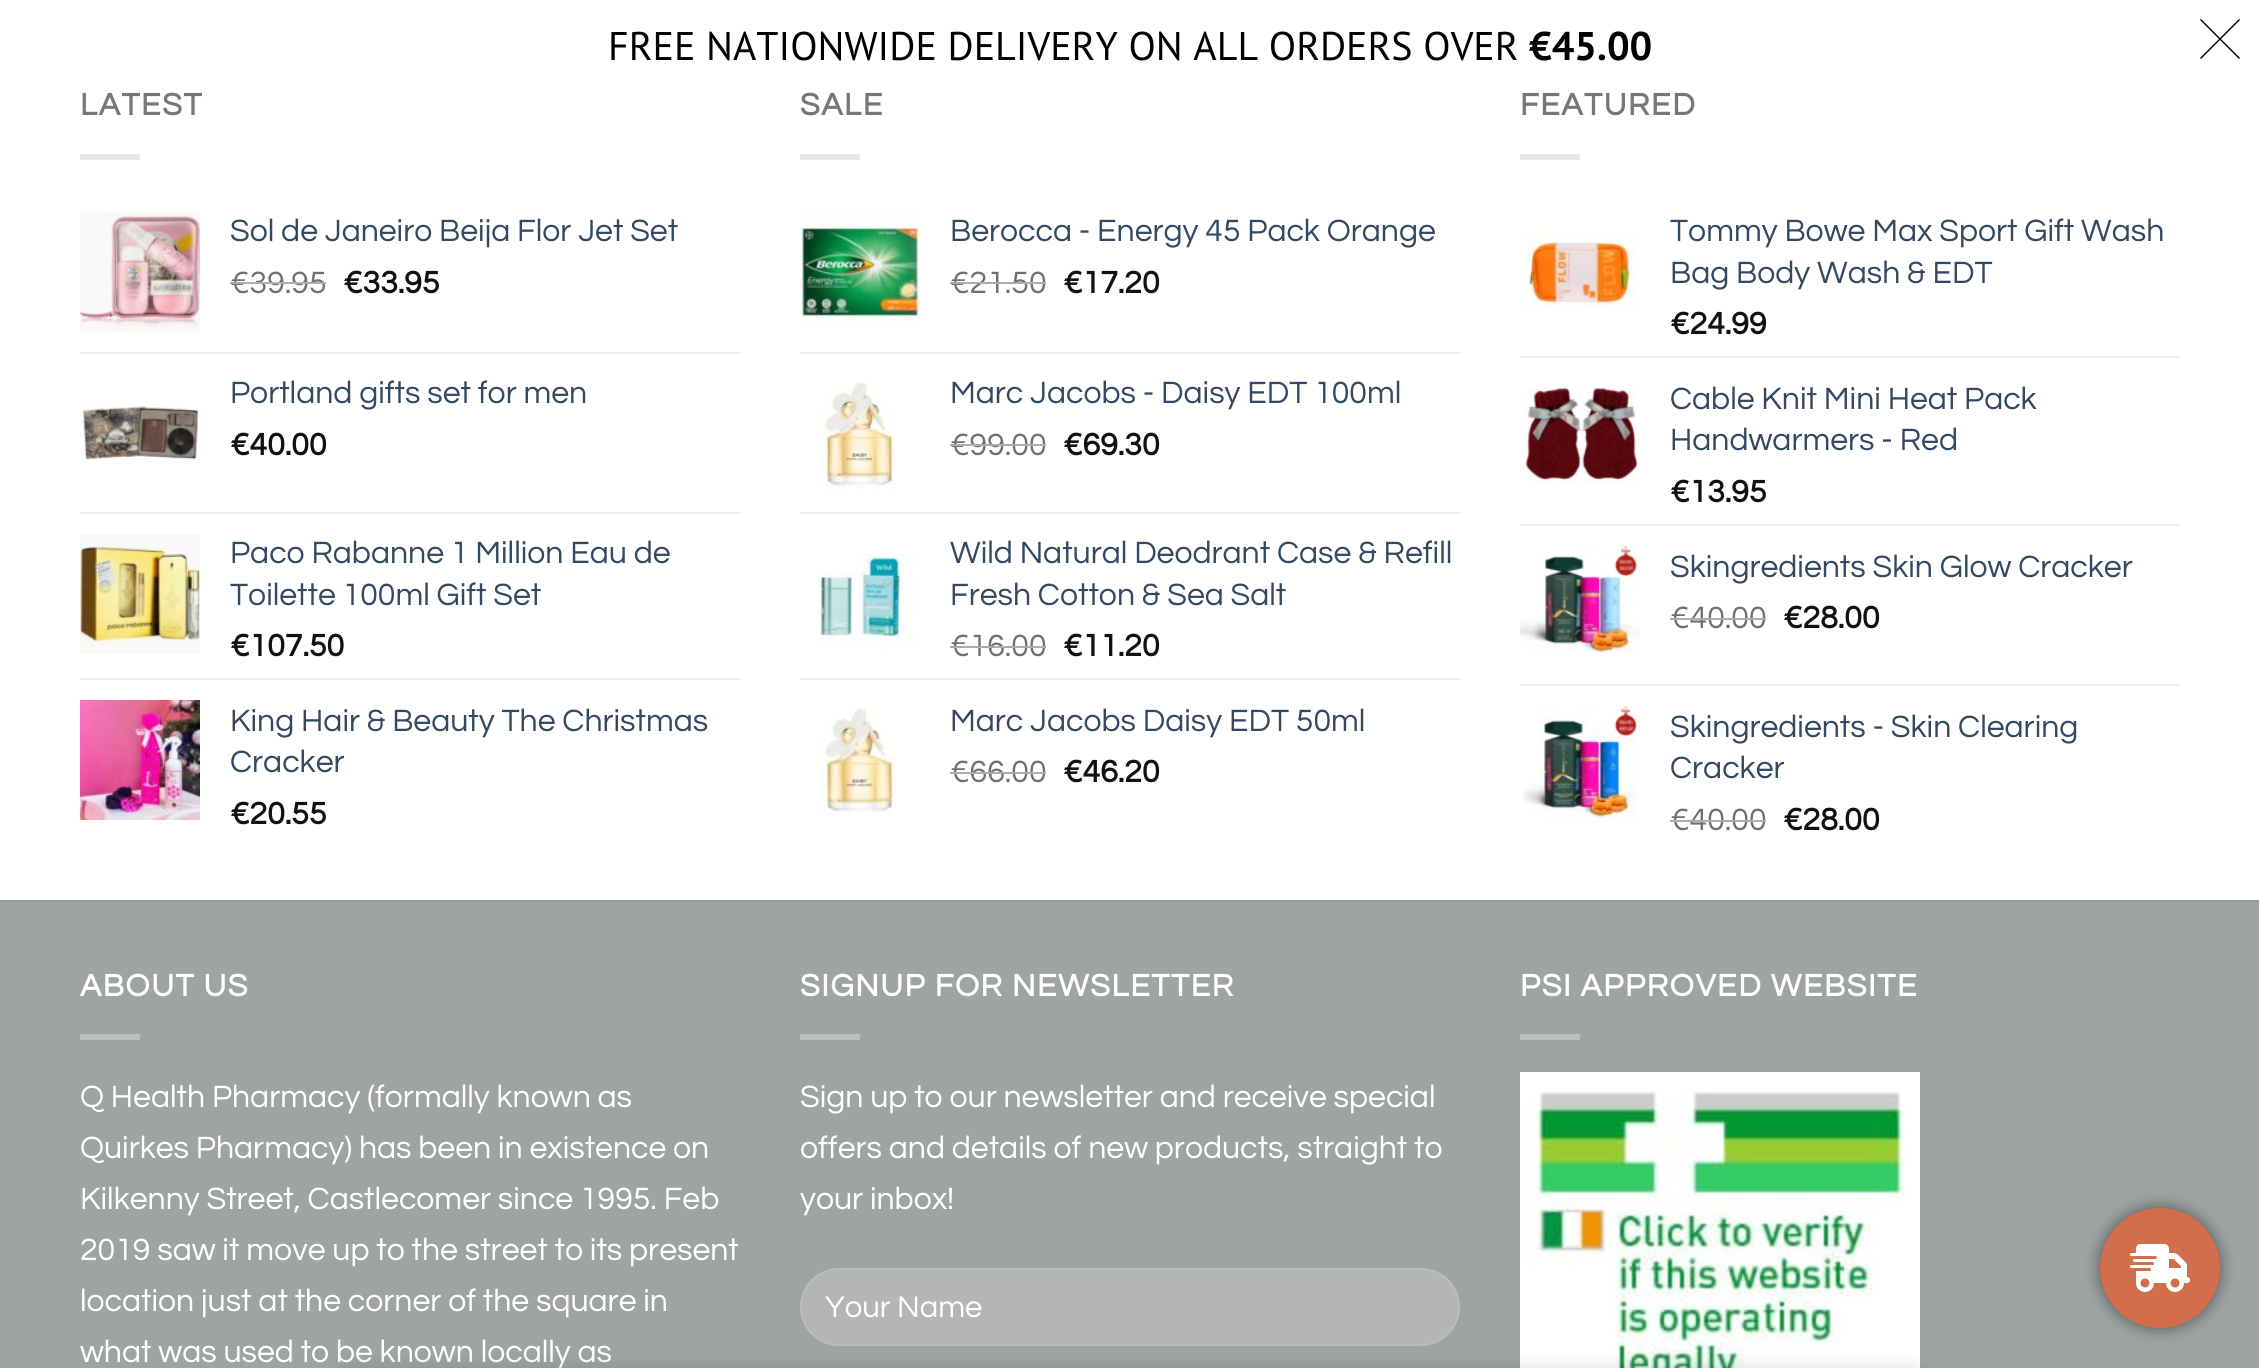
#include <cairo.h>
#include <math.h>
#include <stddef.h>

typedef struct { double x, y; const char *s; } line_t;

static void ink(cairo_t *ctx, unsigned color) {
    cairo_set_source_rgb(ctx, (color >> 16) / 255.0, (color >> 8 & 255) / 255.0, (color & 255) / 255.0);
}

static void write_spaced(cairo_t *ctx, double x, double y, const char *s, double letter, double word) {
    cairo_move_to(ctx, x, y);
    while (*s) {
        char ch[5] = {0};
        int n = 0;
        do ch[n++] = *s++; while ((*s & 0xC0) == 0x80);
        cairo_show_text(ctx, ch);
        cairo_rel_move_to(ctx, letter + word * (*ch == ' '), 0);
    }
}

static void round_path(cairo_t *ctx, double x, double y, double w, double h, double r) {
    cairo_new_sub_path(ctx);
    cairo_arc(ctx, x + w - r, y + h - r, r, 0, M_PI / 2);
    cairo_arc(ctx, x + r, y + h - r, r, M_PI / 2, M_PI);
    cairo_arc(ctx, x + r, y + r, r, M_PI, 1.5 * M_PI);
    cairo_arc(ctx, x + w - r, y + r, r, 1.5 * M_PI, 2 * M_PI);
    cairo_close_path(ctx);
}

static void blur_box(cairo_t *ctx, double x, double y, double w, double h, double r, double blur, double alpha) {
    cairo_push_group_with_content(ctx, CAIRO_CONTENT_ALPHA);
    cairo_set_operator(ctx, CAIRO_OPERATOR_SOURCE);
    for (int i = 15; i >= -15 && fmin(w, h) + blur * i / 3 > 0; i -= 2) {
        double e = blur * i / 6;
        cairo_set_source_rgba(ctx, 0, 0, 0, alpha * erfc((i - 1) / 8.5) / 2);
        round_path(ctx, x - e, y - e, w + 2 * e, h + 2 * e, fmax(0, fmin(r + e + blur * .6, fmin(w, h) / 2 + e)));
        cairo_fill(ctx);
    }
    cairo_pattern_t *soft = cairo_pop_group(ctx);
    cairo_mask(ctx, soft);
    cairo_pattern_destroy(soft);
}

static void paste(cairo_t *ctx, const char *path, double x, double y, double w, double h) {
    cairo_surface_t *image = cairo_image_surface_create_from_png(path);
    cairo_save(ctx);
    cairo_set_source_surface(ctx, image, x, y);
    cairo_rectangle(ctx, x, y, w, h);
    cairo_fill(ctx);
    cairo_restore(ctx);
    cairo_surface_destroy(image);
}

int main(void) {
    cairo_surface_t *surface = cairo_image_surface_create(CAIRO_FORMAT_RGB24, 2259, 1368);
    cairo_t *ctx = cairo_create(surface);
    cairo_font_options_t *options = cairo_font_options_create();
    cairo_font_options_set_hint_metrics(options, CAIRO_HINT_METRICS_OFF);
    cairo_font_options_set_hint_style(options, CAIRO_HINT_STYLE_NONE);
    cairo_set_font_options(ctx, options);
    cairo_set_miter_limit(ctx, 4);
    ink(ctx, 0xFFFFFF);
    cairo_paint(ctx);
    cairo_select_font_face(ctx, "PT Sans", CAIRO_FONT_SLANT_NORMAL, CAIRO_FONT_WEIGHT_NORMAL);
    cairo_set_font_size(ctx, 40);
    ink(ctx, 0x000000);
    cairo_move_to(ctx, 608, 60);
    cairo_show_text(ctx, "FREE NATIONWIDE DELIVERY ON ALL ORDERS OVER");
    cairo_select_font_face(ctx, "PT Sans", CAIRO_FONT_SLANT_NORMAL, CAIRO_FONT_WEIGHT_BOLD);
    cairo_move_to(ctx, 1529, 60);
    cairo_show_text(ctx, "€45.00");
    cairo_new_path(ctx);
    cairo_move_to(ctx, 2240, 20);
    cairo_line_to(ctx, 2221, 39);
    cairo_line_to(ctx, 2240, 58);
    cairo_line_to(ctx, 2239, 59);
    cairo_line_to(ctx, 2220, 40);
    cairo_line_to(ctx, 2201, 59);
    cairo_line_to(ctx, 2200, 58);
    cairo_line_to(ctx, 2219, 39);
    cairo_line_to(ctx, 2200, 20);
    cairo_line_to(ctx, 2201, 19);
    cairo_line_to(ctx, 2220, 38);
    cairo_line_to(ctx, 2239, 19);
    cairo_close_path(ctx);
    cairo_fill(ctx);
    cairo_select_font_face(ctx, "Questrial", CAIRO_FONT_SLANT_NORMAL, CAIRO_FONT_WEIGHT_BOLD);
    cairo_set_font_size(ctx, 32);
    ink(ctx, 0x777777);
    write_spaced(ctx, 80, 115, "LATEST", 1.6, 0);
    ink(ctx, 0xE6E6E6);
    cairo_rectangle(ctx, 80, 154, 60, 6);
    cairo_fill(ctx);
    paste(ctx, "media/1.png", 80, 212, 120, 120);
    cairo_select_font_face(ctx, "Questrial", CAIRO_FONT_SLANT_NORMAL, CAIRO_FONT_WEIGHT_NORMAL);
    ink(ctx, 0x334862);
    cairo_move_to(ctx, 230, 241);
    cairo_show_text(ctx, "Sol de Janeiro Beija Flor Jet Set");
    ink(ctx, 0x707070);
    cairo_move_to(ctx, 230, 293);
    cairo_show_text(ctx, "€39.95");
    ink(ctx, 0xADADAD);
    cairo_rectangle(ctx, 230, 282, 96, 2);
    cairo_fill(ctx);
    cairo_select_font_face(ctx, "Questrial", CAIRO_FONT_SLANT_NORMAL, CAIRO_FONT_WEIGHT_BOLD);
    ink(ctx, 0x111111);
    cairo_move_to(ctx, 343, 293);
    cairo_show_text(ctx, "€33.95");
    ink(ctx, 0xECECEC);
    cairo_rectangle(ctx, 80, 352, 660, 2);
    cairo_fill(ctx);
    cairo_select_font_face(ctx, "Questrial", CAIRO_FONT_SLANT_NORMAL, CAIRO_FONT_WEIGHT_NORMAL);
    ink(ctx, 0x334862);
    cairo_move_to(ctx, 230, 403);
    cairo_show_text(ctx, "Portland gifts set for men");
    paste(ctx, "media/2.png", 80, 406, 120, 55);
    cairo_select_font_face(ctx, "Questrial", CAIRO_FONT_SLANT_NORMAL, CAIRO_FONT_WEIGHT_BOLD);
    ink(ctx, 0x111111);
    cairo_move_to(ctx, 230, 455);
    cairo_show_text(ctx, "€40.00");
    ink(ctx, 0xECECEC);
    cairo_rectangle(ctx, 80, 512, 660, 2);
    cairo_fill(ctx);
    paste(ctx, "media/3.png", 80, 534, 120, 120);
    cairo_select_font_face(ctx, "Questrial", CAIRO_FONT_SLANT_NORMAL, CAIRO_FONT_WEIGHT_NORMAL);
    ink(ctx, 0x334862);
    cairo_move_to(ctx, 230, 563);
    cairo_show_text(ctx, "Paco Rabanne 1 Million Eau de");
    cairo_move_to(ctx, 230, 605);
    cairo_show_text(ctx, "Toilette 100ml Gift Set");
    cairo_select_font_face(ctx, "Questrial", CAIRO_FONT_SLANT_NORMAL, CAIRO_FONT_WEIGHT_BOLD);
    ink(ctx, 0x111111);
    cairo_move_to(ctx, 230, 656);
    cairo_show_text(ctx, "€107.50");
    ink(ctx, 0xECECEC);
    cairo_rectangle(ctx, 80, 678, 660, 2);
    cairo_fill(ctx);
    paste(ctx, "media/4.png", 80, 700, 120, 120);
    cairo_select_font_face(ctx, "Questrial", CAIRO_FONT_SLANT_NORMAL, CAIRO_FONT_WEIGHT_NORMAL);
    ink(ctx, 0x334862);
    cairo_move_to(ctx, 230, 731);
    cairo_show_text(ctx, "King Hair & Beauty The Christmas");
    cairo_move_to(ctx, 230, 772);
    cairo_show_text(ctx, "Cracker");
    cairo_select_font_face(ctx, "Questrial", CAIRO_FONT_SLANT_NORMAL, CAIRO_FONT_WEIGHT_BOLD);
    ink(ctx, 0x111111);
    cairo_move_to(ctx, 230, 824);
    cairo_show_text(ctx, "€20.55");
    ink(ctx, 0x777777);
    write_spaced(ctx, 800, 115, "SALE", 1.6, 0);
    ink(ctx, 0xE6E6E6);
    cairo_rectangle(ctx, 800, 154, 60, 6);
    cairo_fill(ctx);
    paste(ctx, "media/5.png", 800, 212, 120, 116);
    cairo_select_font_face(ctx, "Questrial", CAIRO_FONT_SLANT_NORMAL, CAIRO_FONT_WEIGHT_NORMAL);
    ink(ctx, 0x334862);
    cairo_move_to(ctx, 950, 241);
    cairo_show_text(ctx, "Berocca - Energy 45 Pack Orange");
    ink(ctx, 0x707070);
    cairo_move_to(ctx, 950, 293);
    cairo_show_text(ctx, "€21.50");
    ink(ctx, 0xADADAD);
    cairo_rectangle(ctx, 950, 282, 96, 2);
    cairo_fill(ctx);
    cairo_select_font_face(ctx, "Questrial", CAIRO_FONT_SLANT_NORMAL, CAIRO_FONT_WEIGHT_BOLD);
    ink(ctx, 0x111111);
    cairo_move_to(ctx, 1063, 293);
    cairo_show_text(ctx, "€17.20");
    ink(ctx, 0xECECEC);
    cairo_rectangle(ctx, 800, 352, 660, 2);
    cairo_fill(ctx);
    paste(ctx, "media/6.png", 819, 381, 77, 108);
    cairo_select_font_face(ctx, "Questrial", CAIRO_FONT_SLANT_NORMAL, CAIRO_FONT_WEIGHT_NORMAL);
    ink(ctx, 0x334862);
    cairo_move_to(ctx, 950, 403);
    cairo_show_text(ctx, "Marc Jacobs - Daisy EDT 100ml");
    ink(ctx, 0x707070);
    cairo_move_to(ctx, 950, 455);
    cairo_show_text(ctx, "€99.00");
    ink(ctx, 0xADADAD);
    cairo_rectangle(ctx, 950, 444, 96, 2);
    cairo_fill(ctx);
    cairo_select_font_face(ctx, "Questrial", CAIRO_FONT_SLANT_NORMAL, CAIRO_FONT_WEIGHT_BOLD);
    ink(ctx, 0x111111);
    cairo_move_to(ctx, 1063, 455);
    cairo_show_text(ctx, "€69.30");
    ink(ctx, 0xECECEC);
    cairo_rectangle(ctx, 800, 512, 660, 2);
    cairo_fill(ctx);
    paste(ctx, "media/7.png", 819, 553, 96, 96);
    cairo_select_font_face(ctx, "Questrial", CAIRO_FONT_SLANT_NORMAL, CAIRO_FONT_WEIGHT_NORMAL);
    ink(ctx, 0x334862);
    cairo_move_to(ctx, 950, 563);
    cairo_show_text(ctx, "Wild Natural Deodrant Case & Refill");
    cairo_move_to(ctx, 950, 605);
    cairo_show_text(ctx, "Fresh Cotton & Sea Salt");
    ink(ctx, 0x707070);
    cairo_move_to(ctx, 950, 656);
    cairo_show_text(ctx, "€16.00");
    ink(ctx, 0xADADAD);
    cairo_rectangle(ctx, 950, 646, 96, 2);
    cairo_fill(ctx);
    cairo_select_font_face(ctx, "Questrial", CAIRO_FONT_SLANT_NORMAL, CAIRO_FONT_WEIGHT_BOLD);
    ink(ctx, 0x111111);
    cairo_move_to(ctx, 1063, 656);
    cairo_show_text(ctx, "€11.20");
    ink(ctx, 0xECECEC);
    cairo_rectangle(ctx, 800, 678, 660, 2);
    cairo_fill(ctx);
    paste(ctx, "media/8.png", 819, 707, 77, 108);
    cairo_select_font_face(ctx, "Questrial", CAIRO_FONT_SLANT_NORMAL, CAIRO_FONT_WEIGHT_NORMAL);
    ink(ctx, 0x334862);
    cairo_move_to(ctx, 950, 731);
    cairo_show_text(ctx, "Marc Jacobs Daisy EDT 50ml");
    ink(ctx, 0x707070);
    cairo_move_to(ctx, 950, 782);
    cairo_show_text(ctx, "€66.00");
    ink(ctx, 0xADADAD);
    cairo_rectangle(ctx, 950, 772, 96, 2);
    cairo_fill(ctx);
    cairo_select_font_face(ctx, "Questrial", CAIRO_FONT_SLANT_NORMAL, CAIRO_FONT_WEIGHT_BOLD);
    ink(ctx, 0x111111);
    cairo_move_to(ctx, 1063, 782);
    cairo_show_text(ctx, "€46.20");
    ink(ctx, 0x777777);
    write_spaced(ctx, 1520, 115, "FEATURED", 1.6, 0);
    ink(ctx, 0xE6E6E6);
    cairo_rectangle(ctx, 1520, 154, 60, 6);
    cairo_fill(ctx);
    paste(ctx, "media/9.png", 1520, 231, 115, 78);
    cairo_select_font_face(ctx, "Questrial", CAIRO_FONT_SLANT_NORMAL, CAIRO_FONT_WEIGHT_NORMAL);
    ink(ctx, 0x334862);
    cairo_move_to(ctx, 1670, 241);
    cairo_show_text(ctx, "Tommy Bowe Max Sport Gift Wash");
    cairo_move_to(ctx, 1670, 283);
    cairo_show_text(ctx, "Bag Body Wash & EDT");
    cairo_select_font_face(ctx, "Questrial", CAIRO_FONT_SLANT_NORMAL, CAIRO_FONT_WEIGHT_BOLD);
    ink(ctx, 0x111111);
    cairo_move_to(ctx, 1670, 334);
    cairo_show_text(ctx, "€24.99");
    ink(ctx, 0xECECEC);
    cairo_rectangle(ctx, 1520, 356, 660, 2);
    cairo_fill(ctx);
    paste(ctx, "media/10.png", 1520, 387, 120, 97);
    cairo_select_font_face(ctx, "Questrial", CAIRO_FONT_SLANT_NORMAL, CAIRO_FONT_WEIGHT_NORMAL);
    ink(ctx, 0x334862);
    cairo_move_to(ctx, 1670, 409);
    cairo_show_text(ctx, "Cable Knit Mini Heat Pack");
    cairo_move_to(ctx, 1670, 450);
    cairo_show_text(ctx, "Handwarmers - Red");
    cairo_select_font_face(ctx, "Questrial", CAIRO_FONT_SLANT_NORMAL, CAIRO_FONT_WEIGHT_BOLD);
    ink(ctx, 0x111111);
    cairo_move_to(ctx, 1670, 502);
    cairo_show_text(ctx, "€13.95");
    ink(ctx, 0xECECEC);
    cairo_rectangle(ctx, 1520, 524, 660, 2);
    cairo_fill(ctx);
    paste(ctx, "media/11.png", 1520, 546, 120, 107);
    cairo_select_font_face(ctx, "Questrial", CAIRO_FONT_SLANT_NORMAL, CAIRO_FONT_WEIGHT_NORMAL);
    ink(ctx, 0x334862);
    cairo_move_to(ctx, 1670, 577);
    cairo_show_text(ctx, "Skingredients Skin Glow Cracker");
    ink(ctx, 0x707070);
    cairo_move_to(ctx, 1670, 628);
    cairo_show_text(ctx, "€40.00");
    ink(ctx, 0xADADAD);
    cairo_rectangle(ctx, 1670, 618, 96, 2);
    cairo_fill(ctx);
    cairo_select_font_face(ctx, "Questrial", CAIRO_FONT_SLANT_NORMAL, CAIRO_FONT_WEIGHT_BOLD);
    ink(ctx, 0x111111);
    cairo_move_to(ctx, 1783, 628);
    cairo_show_text(ctx, "€28.00");
    ink(ctx, 0xECECEC);
    cairo_rectangle(ctx, 1520, 684, 660, 2);
    cairo_fill(ctx);
    paste(ctx, "media/12.png", 1523, 706, 117, 116);
    cairo_select_font_face(ctx, "Questrial", CAIRO_FONT_SLANT_NORMAL, CAIRO_FONT_WEIGHT_NORMAL);
    ink(ctx, 0x334862);
    cairo_move_to(ctx, 1670, 737);
    cairo_show_text(ctx, "Skingredients - Skin Clearing");
    cairo_move_to(ctx, 1670, 778);
    cairo_show_text(ctx, "Cracker");
    ink(ctx, 0x707070);
    cairo_move_to(ctx, 1670, 830);
    cairo_show_text(ctx, "€40.00");
    ink(ctx, 0xADADAD);
    cairo_rectangle(ctx, 1670, 820, 96, 2);
    cairo_fill(ctx);
    cairo_select_font_face(ctx, "Questrial", CAIRO_FONT_SLANT_NORMAL, CAIRO_FONT_WEIGHT_BOLD);
    ink(ctx, 0x111111);
    cairo_move_to(ctx, 1783, 830);
    cairo_show_text(ctx, "€28.00");
    ink(ctx, 0xA0A3A4);
    cairo_rectangle(ctx, 0, 902, 2259, 466);
    cairo_fill(ctx);
    ink(ctx, 0x989B9C);
    cairo_rectangle(ctx, 0, 900, 2259, 2);
    cairo_fill(ctx);
    ink(ctx, 0xFFFFFF);
    write_spaced(ctx, 80, 996, "ABOUT US", 1.6, 0);
    ink(ctx, 0xBDBFBF);
    cairo_rectangle(ctx, 80, 1034, 60, 6);
    cairo_fill(ctx);
    cairo_select_font_face(ctx, "Questrial", CAIRO_FONT_SLANT_NORMAL, CAIRO_FONT_WEIGHT_NORMAL);
    ink(ctx, 0xFFFFFF);
    {
        static const line_t items[] = {
            {80, 1107, "Q Health Pharmacy (formally known as"},
            {80, 1158, "Quirkes Pharmacy) has been in existence on"},
            {80, 1209, "Kilkenny Street, Castlecomer since 1995. Feb"},
            {80, 1260, "2019 saw it move up to the street to its present"},
            {80, 1311, "location just at the corner of the square in"},
            {80, 1362, "what was used to be known locally as"},
        };
        for (size_t i = 0; i < sizeof items / sizeof *items; i++) {
            cairo_move_to(ctx, items[i].x, items[i].y);
            cairo_show_text(ctx, items[i].s);
        }
    }
    cairo_select_font_face(ctx, "Questrial", CAIRO_FONT_SLANT_NORMAL, CAIRO_FONT_WEIGHT_BOLD);
    write_spaced(ctx, 800, 996, "SIGNUP FOR NEWSLETTER", 1.6, 0);
    ink(ctx, 0xBDBFBF);
    cairo_rectangle(ctx, 800, 1034, 60, 6);
    cairo_fill(ctx);
    cairo_select_font_face(ctx, "Questrial", CAIRO_FONT_SLANT_NORMAL, CAIRO_FONT_WEIGHT_NORMAL);
    ink(ctx, 0xFFFFFF);
    {
        static const line_t items[] = {
            {800, 1107, "Sign up to our newsletter and receive special"},
            {800, 1158, "offers and details of new products, straight to"},
            {800, 1209, "your inbox!"},
        };
        for (size_t i = 0; i < sizeof items / sizeof *items; i++) {
            cairo_move_to(ctx, items[i].x, items[i].y);
            cairo_show_text(ctx, items[i].s);
        }
    }
    ink(ctx, 0xB3B5B6);
    round_path(ctx, 800, 1268, 660, 78, 39);
    cairo_fill(ctx);
    round_path(ctx, 801, 1269, 658, 76, 38);
    cairo_set_source_rgba(ctx, 1, 1, 1, 0.09);
    cairo_stroke(ctx);
    cairo_set_font_size(ctx, 31);
    ink(ctx, 0xFFFFFF);
    cairo_move_to(ctx, 825, 1317);
    cairo_show_text(ctx, "Your Name");
    cairo_select_font_face(ctx, "Questrial", CAIRO_FONT_SLANT_NORMAL, CAIRO_FONT_WEIGHT_BOLD);
    cairo_set_font_size(ctx, 32);
    write_spaced(ctx, 1520, 996, "PSI APPROVED WEBSITE", 1.6, 0);
    ink(ctx, 0xBDBFBF);
    cairo_rectangle(ctx, 1520, 1034, 60, 6);
    cairo_fill(ctx);
    paste(ctx, "media/13.png", 1520, 1072, 400, 296);
    ink(ctx, 0x000000);
    blur_box(ctx, 332, 1368, 1596, 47, 20, 9, 0.14);
    blur_box(ctx, 2100, 1208, 120, 120, 60, 8, 0.5);
    ink(ctx, 0xD26E4B);
    cairo_arc(ctx, 2160, 1268, 60, 0, 2 * M_PI);
    cairo_fill(ctx);
    paste(ctx, "media/14.png", 2130, 1244, 60, 48);
    cairo_surface_write_to_png(surface, "image.png");
    cairo_font_options_destroy(options);
    cairo_destroy(ctx);
    cairo_surface_destroy(surface);
    return 0;
}
